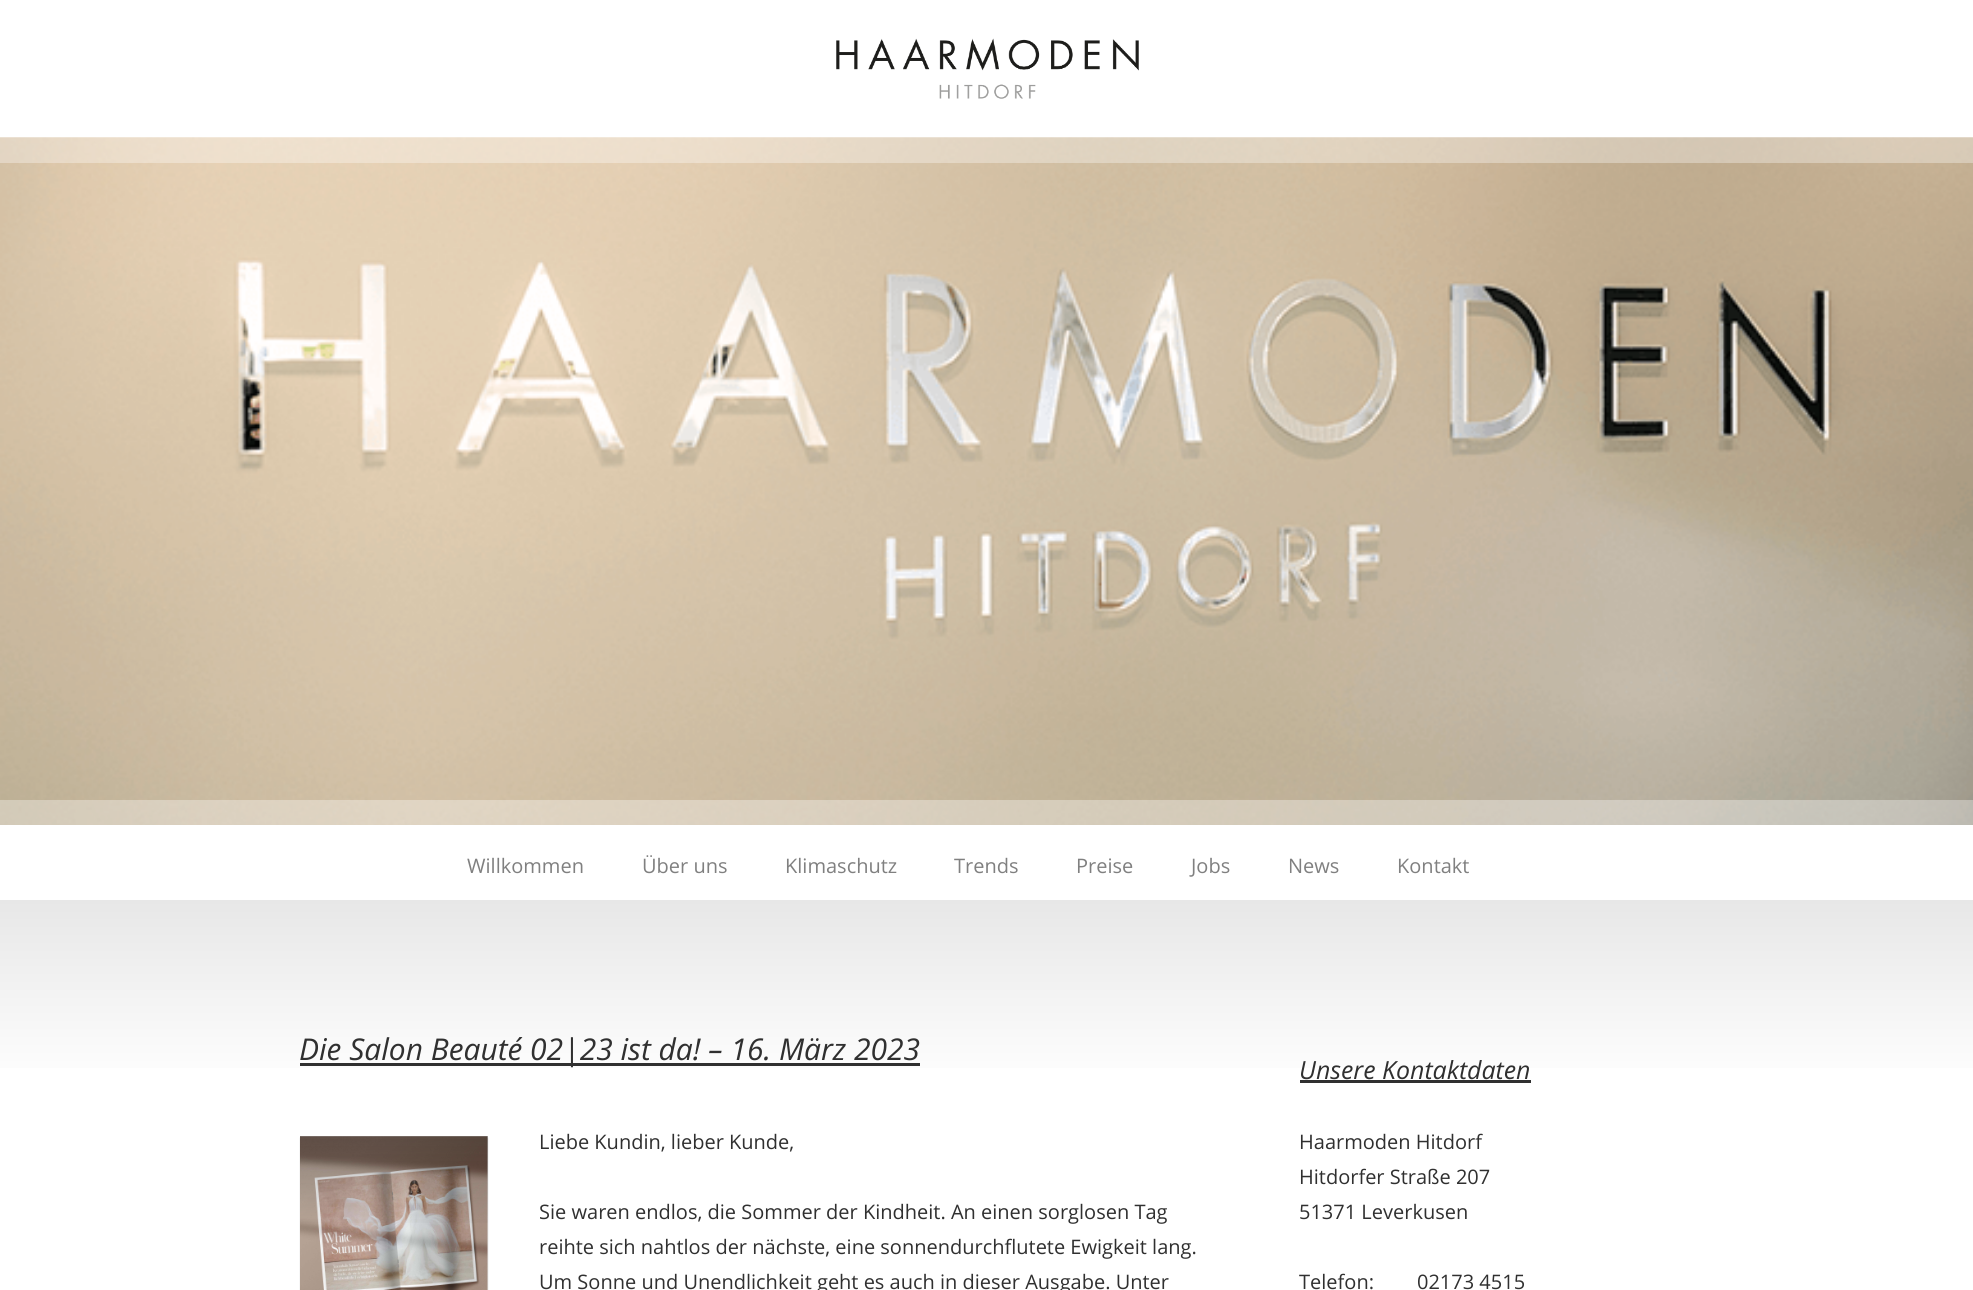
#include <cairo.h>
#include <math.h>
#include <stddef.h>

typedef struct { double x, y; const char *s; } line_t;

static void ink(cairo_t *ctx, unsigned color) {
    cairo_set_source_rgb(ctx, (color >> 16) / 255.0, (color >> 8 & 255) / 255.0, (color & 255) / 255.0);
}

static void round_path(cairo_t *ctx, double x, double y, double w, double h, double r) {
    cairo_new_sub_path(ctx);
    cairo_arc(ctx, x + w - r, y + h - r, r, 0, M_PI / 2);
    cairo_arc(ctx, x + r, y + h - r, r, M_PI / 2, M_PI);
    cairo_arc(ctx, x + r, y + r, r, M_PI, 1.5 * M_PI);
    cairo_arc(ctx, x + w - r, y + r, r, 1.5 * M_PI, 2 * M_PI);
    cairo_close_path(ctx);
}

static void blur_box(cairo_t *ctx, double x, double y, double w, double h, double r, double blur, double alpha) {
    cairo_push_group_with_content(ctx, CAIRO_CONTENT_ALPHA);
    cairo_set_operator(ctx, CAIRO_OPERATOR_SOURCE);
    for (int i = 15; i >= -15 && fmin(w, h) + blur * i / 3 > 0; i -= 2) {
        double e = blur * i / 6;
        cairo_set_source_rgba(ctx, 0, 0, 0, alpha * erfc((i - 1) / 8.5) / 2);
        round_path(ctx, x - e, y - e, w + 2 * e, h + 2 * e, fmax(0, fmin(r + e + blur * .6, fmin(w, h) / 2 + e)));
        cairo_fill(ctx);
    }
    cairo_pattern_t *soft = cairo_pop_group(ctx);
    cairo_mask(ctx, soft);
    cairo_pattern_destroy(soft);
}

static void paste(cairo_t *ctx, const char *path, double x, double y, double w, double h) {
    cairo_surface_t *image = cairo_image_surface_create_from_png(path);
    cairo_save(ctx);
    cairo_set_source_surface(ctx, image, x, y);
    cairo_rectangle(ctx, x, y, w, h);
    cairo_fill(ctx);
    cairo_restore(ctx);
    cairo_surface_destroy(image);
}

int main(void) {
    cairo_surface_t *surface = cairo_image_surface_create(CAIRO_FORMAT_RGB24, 1973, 1290);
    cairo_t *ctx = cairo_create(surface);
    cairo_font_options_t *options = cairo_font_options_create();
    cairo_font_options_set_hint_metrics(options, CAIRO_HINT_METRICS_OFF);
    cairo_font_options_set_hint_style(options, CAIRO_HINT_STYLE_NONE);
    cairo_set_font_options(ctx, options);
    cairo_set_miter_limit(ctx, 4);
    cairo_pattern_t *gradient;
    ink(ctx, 0xFFFFFF);
    cairo_paint(ctx);
    paste(ctx, "media/1.png", 836, 38, 303, 61);
    paste(ctx, "media/2.png", 0, 137, 1973, 688);
    cairo_set_source_rgba(ctx, 1, 1, 1, 0.33);
    cairo_rectangle(ctx, 0, 138, 1973, 25);
    cairo_fill(ctx);
    cairo_rectangle(ctx, 0, 800, 1973, 25);
    cairo_fill(ctx);
    cairo_select_font_face(ctx, "Open Sans", CAIRO_FONT_SLANT_NORMAL, CAIRO_FONT_WEIGHT_NORMAL);
    cairo_set_font_size(ctx, 20);
    ink(ctx, 0x808080);
    {
        static const line_t items[] = {
            {467, 873, "Willkommen"},
            {642, 873, "Über uns"},
            {785, 873, "Klimaschutz"},
            {954, 873, "Trends"},
            {1076, 873, "Preise"},
            {1191, 873, "Jobs"},
            {1288, 873, "News"},
            {1397, 873, "Kontakt"},
        };
        for (size_t i = 0; i < sizeof items / sizeof *items; i++) {
            cairo_move_to(ctx, items[i].x, items[i].y);
            cairo_show_text(ctx, items[i].s);
        }
    }
    gradient = cairo_pattern_create_linear(987, 900, 987, 1088);
    cairo_pattern_add_color_stop_rgba(gradient, 0, 0.906, 0.906, 0.906, 1);
    cairo_pattern_add_color_stop_rgba(gradient, 1, 1, 1, 1, 1);
    cairo_set_source(ctx, gradient);
    cairo_pattern_destroy(gradient);
    cairo_rectangle(ctx, 0, 900, 1973, 168);
    cairo_fill(ctx);
    ink(ctx, 0x303030);
    cairo_rectangle(ctx, 300, 1063, 620, 3);
    cairo_fill(ctx);
    cairo_select_font_face(ctx, "Open Sans", CAIRO_FONT_SLANT_ITALIC, CAIRO_FONT_WEIGHT_NORMAL);
    cairo_set_font_size(ctx, 30);
    cairo_move_to(ctx, 299, 1060);
    cairo_show_text(ctx, "Die Salon Beauté 02|23 ist da! – 16. März 2023");
    ink(ctx, 0x000000);
    blur_box(ctx, 300, 1138, 188, 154, 0, 0.5, 0.15);
    paste(ctx, "media/3.png", 300, 1136, 188, 154);
    gradient = cairo_pattern_create_linear(394, 1136, 394, 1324);
    cairo_pattern_add_color_stop_rgba(gradient, 0, 0.169, 0.169, 0.169, 0.3);
    cairo_pattern_add_color_stop_rgba(gradient, 0.5, 0.169, 0.169, 0.169, 0);
    cairo_pattern_add_color_stop_rgba(gradient, 1, 0.169, 0.169, 0.169, 0);
    cairo_set_source(ctx, gradient);
    cairo_pattern_destroy(gradient);
    cairo_rectangle(ctx, 300, 1136, 188, 87);
    cairo_fill(ctx);
    cairo_select_font_face(ctx, "Open Sans", CAIRO_FONT_SLANT_NORMAL, CAIRO_FONT_WEIGHT_NORMAL);
    cairo_set_font_size(ctx, 20);
    ink(ctx, 0x303030);
    {
        static const line_t items[] = {
            {539, 1149, "Liebe Kundin, lieber Kunde,"},
            {539, 1219, "Sie waren endlos, die Sommer der Kindheit. An einen sorglosen Tag"},
            {539, 1254, "reihte sich nahtlos der nächste, eine sonnendurchflutete Ewigkeit lang."},
            {539, 1289, "Um Sonne und Unendlichkeit geht es auch in dieser Ausgabe. Unter"},
        };
        for (size_t i = 0; i < sizeof items / sizeof *items; i++) {
            cairo_move_to(ctx, items[i].x, items[i].y);
            cairo_show_text(ctx, items[i].s);
        }
    }
    cairo_select_font_face(ctx, "Open Sans", CAIRO_FONT_SLANT_ITALIC, CAIRO_FONT_WEIGHT_NORMAL);
    cairo_set_font_size(ctx, 25);
    cairo_move_to(ctx, 1299, 1079);
    cairo_show_text(ctx, "Unsere Kontaktdaten");
    cairo_rectangle(ctx, 1300, 1080, 231, 3);
    cairo_fill(ctx);
    cairo_select_font_face(ctx, "Open Sans", CAIRO_FONT_SLANT_NORMAL, CAIRO_FONT_WEIGHT_NORMAL);
    cairo_set_font_size(ctx, 20);
    {
        static const line_t items[] = {
            {1299, 1149, "Haarmoden Hitdorf"},
            {1299, 1184, "Hitdorfer Straße 207"},
            {1299, 1219, "51371 Leverkusen"},
            {1299, 1289, "Telefon:"},
            {1417, 1289, "02173 4515"},
        };
        for (size_t i = 0; i < sizeof items / sizeof *items; i++) {
            cairo_move_to(ctx, items[i].x, items[i].y);
            cairo_show_text(ctx, items[i].s);
        }
    }
    cairo_surface_write_to_png(surface, "image.png");
    cairo_font_options_destroy(options);
    cairo_destroy(ctx);
    cairo_surface_destroy(surface);
    return 0;
}
